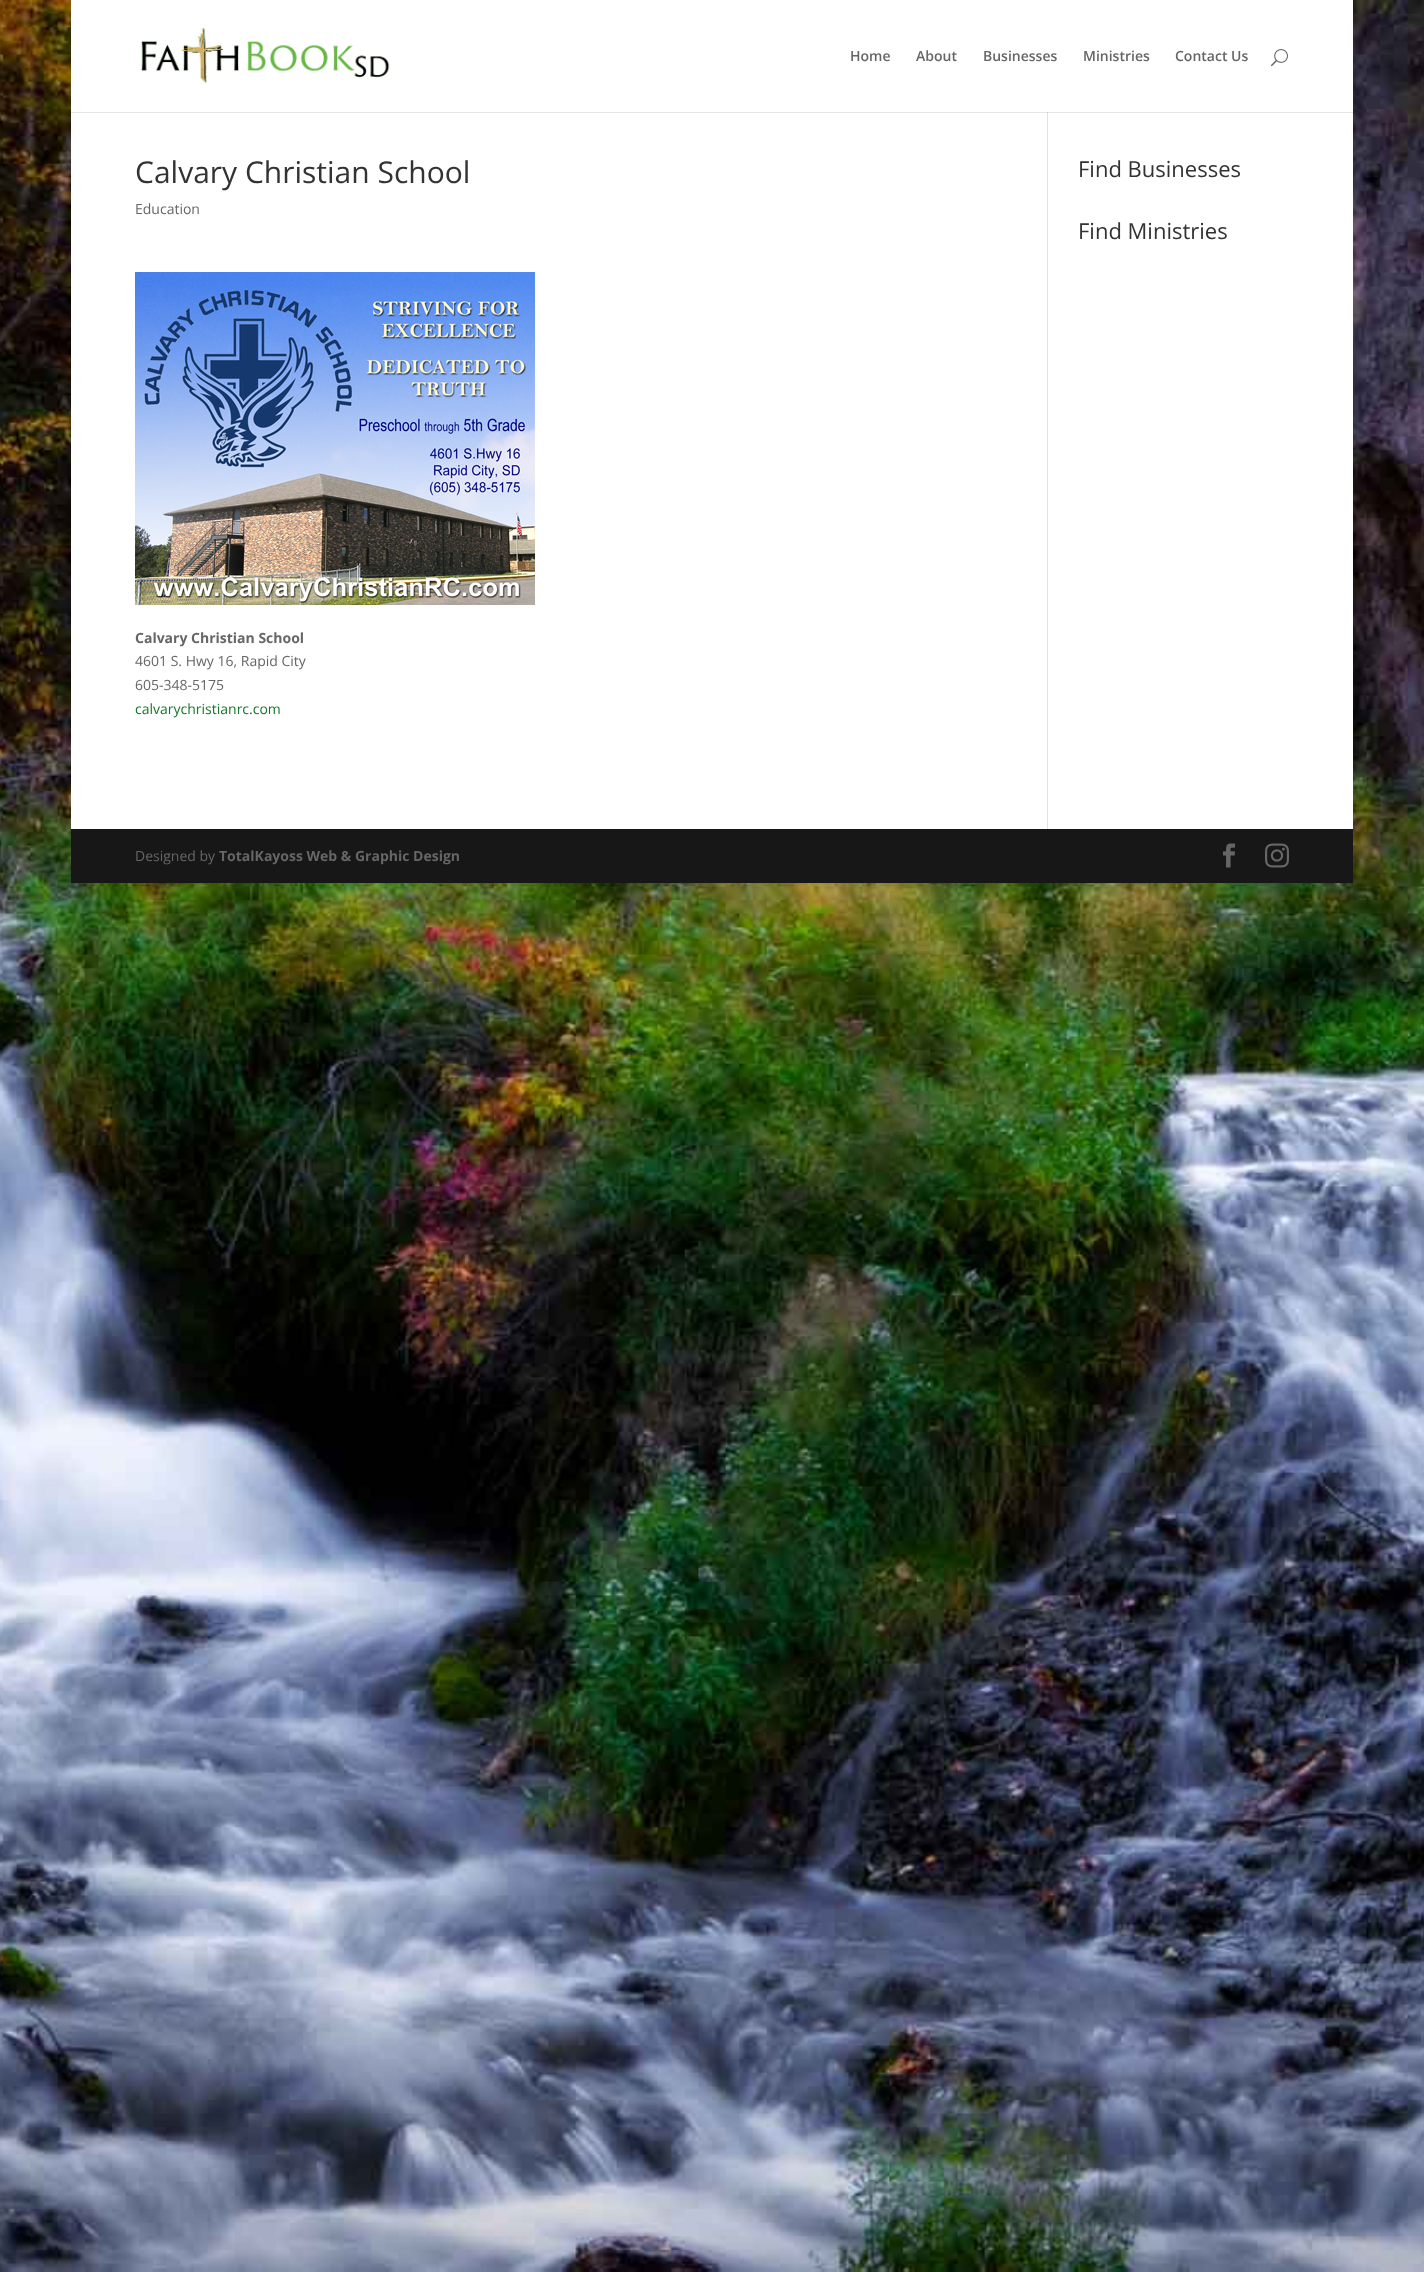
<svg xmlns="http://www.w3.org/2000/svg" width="1424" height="2272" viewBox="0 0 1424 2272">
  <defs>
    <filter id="blur1" x="-50%" y="-200%" width="200%" height="500%"><feGaussianBlur stdDeviation="5"/></filter>
  </defs>
  <rect width="100%" height="100%" fill="#ffffff"/>
  <image x="0" y="0" width="1424" height="2272" href="img1.png"/>
  <rect x="71" y="0" width="1282" height="883" fill="#000000" fill-opacity="0.2" filter="url(#blur1)"/>
  <rect x="71" y="0" width="1282" height="829" fill="#ffffff"/>
  <rect x="1047" y="112" width="1" height="717" fill="#e2e2e2"/>
  <rect x="71" y="112" width="1282" height="1" fill="#000000" fill-opacity="0.1"/>
  <image x="141" y="27" width="249" height="57" href="img2.png"/>
  <text x="850" y="61" font-family="Open Sans" font-size="14" font-weight="600" fill="#666666">Home</text>
  <text x="916" y="61" font-family="Open Sans" font-size="14" font-weight="600" fill="#666666">About</text>
  <text x="983" y="61" font-family="Open Sans" font-size="14" font-weight="600" fill="#666666">Businesses</text>
  <text x="1083" y="61" font-family="Open Sans" font-size="14" font-weight="600" fill="#666666">Ministries</text>
  <text x="1175" y="61" font-family="Open Sans" font-size="14" font-weight="600" fill="#666666">Contact Us</text>
  <image x="1271" y="49" width="17" height="18" href="img3.png"/>
  <text x="135" y="183" font-family="Open Sans" font-size="30" fill="#333333">Calvary Christian School</text>
  <text x="135" y="214" font-family="Open Sans" font-size="14" fill="#666666">Education</text>
  <image x="135" y="272" width="400" height="333" href="img4.png"/>
  <text x="135" y="643" font-family="Open Sans" font-size="14" font-weight="bold" fill="#666666">Calvary Christian School</text>
  <text x="135" y="666" font-family="Open Sans" font-size="14" fill="#666666">4601 S. Hwy 16, Rapid City</text>
  <text x="135" y="690" font-family="Open Sans" font-size="14" fill="#666666">605-348-5175</text>
  <text x="135" y="714" font-family="Open Sans" font-size="14" fill="#157729">calvarychristianrc.com</text>
  <text x="1078" y="177" font-family="Open Sans" font-size="22" fill="#333333">Find Businesses</text>
  <text x="1078" y="239" font-family="Open Sans" font-size="22" fill="#333333">Find Ministries</text>
  <rect x="71" y="829" width="1282" height="54" fill="#171717"/>
  <text x="135" y="861" font-family="Open Sans" font-size="14" fill="#666666">Designed by</text>
  <text x="219" y="861" font-family="Open Sans" font-size="14" font-weight="bold" fill="#666666">TotalKayoss Web &amp; Graphic Design</text>
  <image x="1223" y="843" width="12" height="25" href="img5.png"/>
  <image x="1265" y="843" width="24" height="25" href="img6.png"/>
</svg>
